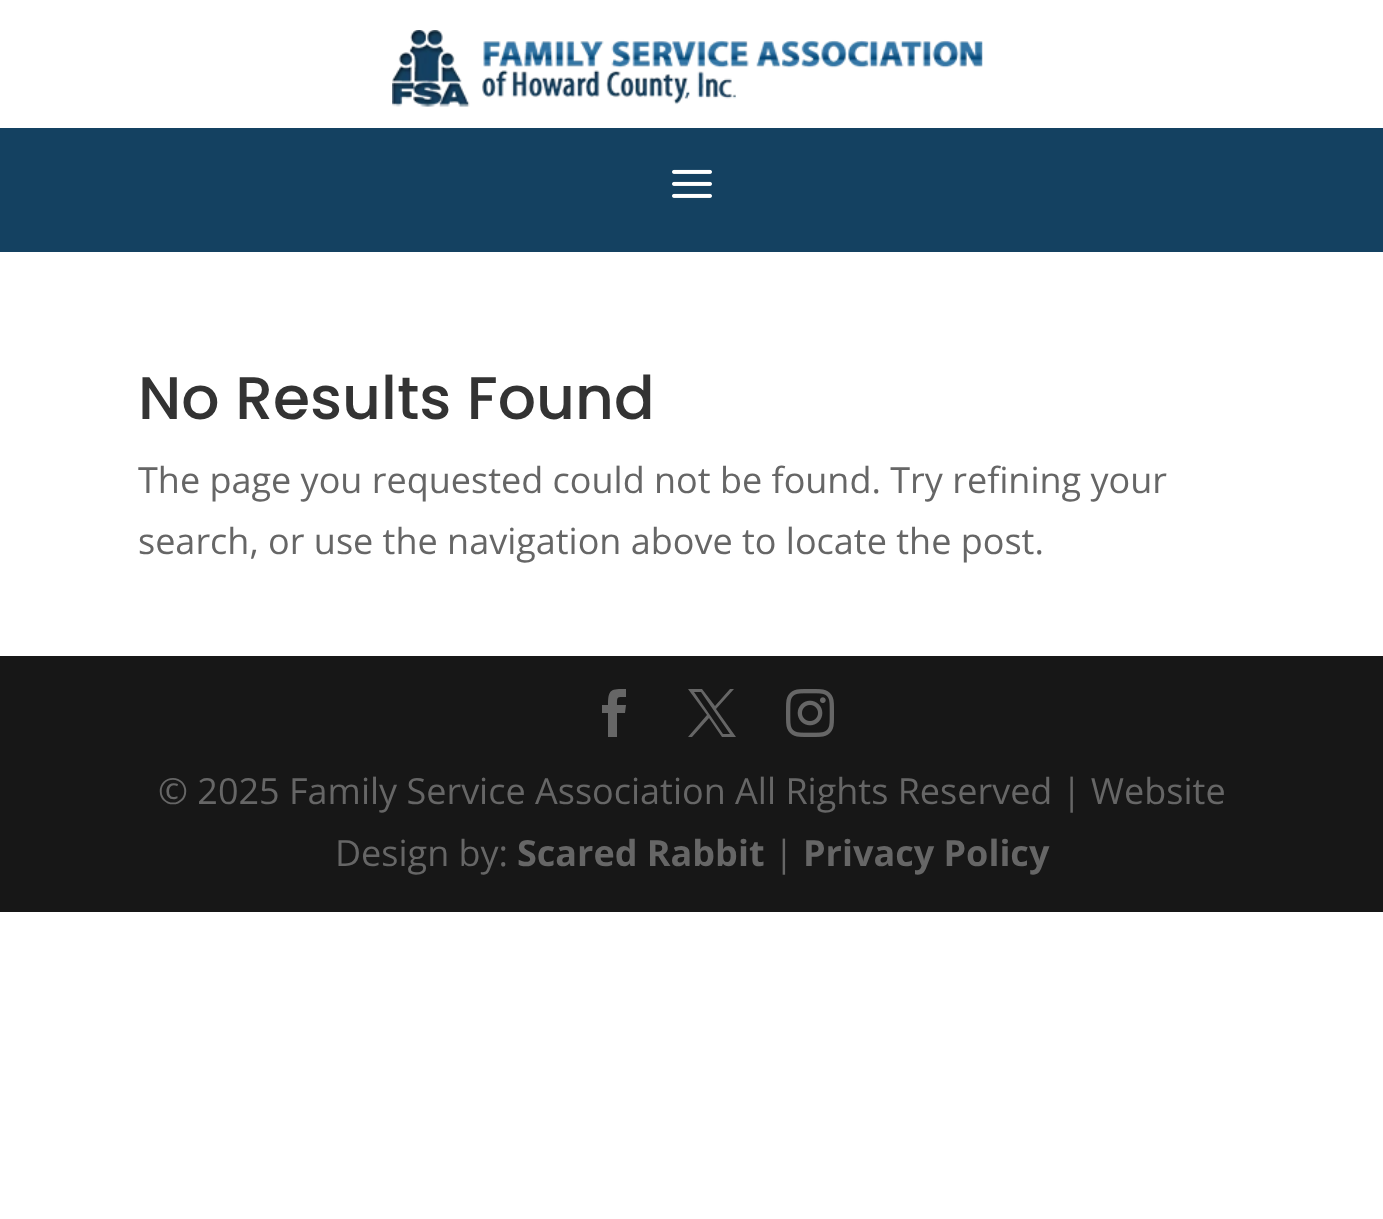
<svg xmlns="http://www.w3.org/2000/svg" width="1383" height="1219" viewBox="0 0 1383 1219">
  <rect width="100%" height="100%" fill="#ffffff"/>
  <image x="392" y="30" width="591" height="77" href="img1.png"/>
  <rect x="0" y="128" width="1383" height="124" fill="#144161"/>
  <image x="672" y="169" width="40" height="29" href="img2.png"/>
  <text x="138" y="419" font-family="Poppins" font-size="60" font-weight="500" fill="#333333">No Results Found</text>
  <text x="138" y="493" font-family="Open Sans" font-size="36" fill="#666666">The page you requested could not be found. Try refining your</text>
  <text x="138" y="554" font-family="Open Sans" font-size="36" fill="#666666">search, or use the navigation above to locate the post.</text>
  <rect x="0" y="656" width="1383" height="256" fill="#171717"/>
  <path d="M608 737H617V713H625L626 705H617C617 696 617 697 626 697V689C611 689 608 689 608 705H602V713H608Z" fill="#666666"/>
  <path d="M688 689L707 715L688 737H692L709 718L722 737H736L716 709L734 689H730L715 706L702 689ZM694 692H701L730 734H723Z" fill="#666666"/>
  <image x="786" y="689" width="48" height="48" href="img3.png"/>
  <text x="158" y="804" font-family="Open Sans" font-size="36" fill="#666666">© 2025 Family Service Association All Rights Reserved | Website</text>
  <text x="335" y="866" font-family="Open Sans" font-size="36" fill="#666666">Design by:</text>
  <text x="517" y="866" font-family="Open Sans" font-size="36" font-weight="bold" fill="#666666">Scared Rabbit</text>
  <text x="774" y="866" font-family="Open Sans" font-size="36" fill="#666666">|</text>
  <text x="803" y="866" font-family="Open Sans" font-size="36" font-weight="bold" fill="#666666">Privacy Policy</text>
</svg>
